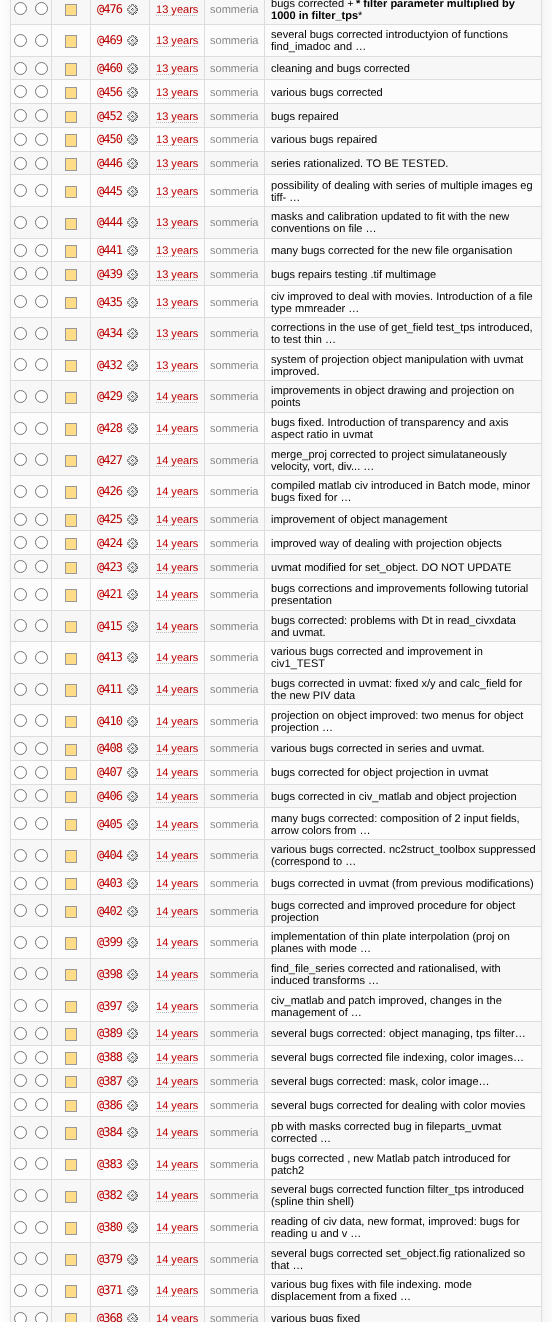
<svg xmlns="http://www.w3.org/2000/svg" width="552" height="1322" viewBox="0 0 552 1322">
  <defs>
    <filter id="blur1" x="-50%" y="-200%" width="200%" height="500%"><feGaussianBlur stdDeviation="10"/></filter>
  </defs>
  <rect width="100%" height="100%" fill="#ffffff"/>
  <rect x="13" y="-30" width="532" height="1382" fill="#eeeeee" filter="url(#blur1)"/>
  <rect x="16" y="0" width="525" height="24" fill="#f7f7f7"/>
  <circle cx="20.5" cy="8.5" r="6" fill="#ffffff" stroke="#767676"/>
  <circle cx="41.5" cy="8.5" r="6" fill="#ffffff" stroke="#767676"/>
  <rect x="65.5" y="4.5" width="11" height="11" fill="#ffdd88" stroke="#999999"/>
  <text x="97" y="13" font-family="DejaVu Sans Mono" font-size="12" letter-spacing="-1" fill="#bb0000">@476</text>
  <image x="127" y="4" width="11" height="11" href="img1.png"/>
  <path d="M156 15.5H198" fill="none" stroke="#bbbbbb" stroke-dasharray="1 1"/>
  <text x="156" y="13" font-family="Liberation Sans" font-size="11.05" fill="#bb0000">13 years</text>
  <text x="210" y="13" font-family="Liberation Sans" font-size="11.05" fill="#888888">sommeria</text>
  <text x="271" y="7" font-family="Liberation Sans" font-size="11.05" fill="#000000">bugs corrected +</text>
  <text x="356" y="7" font-family="Liberation Sans" font-size="11.05" font-weight="bold" fill="#000000">* filter parameter multiplied by</text>
  <text x="271" y="19" font-family="Liberation Sans" font-size="11.05" font-weight="bold" fill="#000000">1000 in filter_tps</text>
  <text x="358" y="19" font-family="Liberation Sans" font-size="11.05" fill="#000000">*</text>
  <rect x="11" y="25" width="530" height="31" fill="#fcfcfc"/>
  <rect x="10" y="24" width="532" height="1" fill="#dddddd"/>
  <circle cx="20.5" cy="40.5" r="6" fill="#ffffff" stroke="#767676"/>
  <circle cx="41.5" cy="40.5" r="6" fill="#ffffff" stroke="#767676"/>
  <rect x="65.5" y="35.5" width="11" height="12" fill="#ffdd88" stroke="#999999"/>
  <text x="97" y="44" font-family="DejaVu Sans Mono" font-size="12" letter-spacing="-1" fill="#bb0000">@469</text>
  <image x="127" y="35" width="11" height="11" href="img2.png"/>
  <path d="M156 46.5H198" fill="none" stroke="#bbbbbb" stroke-dasharray="1 1"/>
  <text x="156" y="44" font-family="Liberation Sans" font-size="11.05" fill="#bb0000">13 years</text>
  <text x="210" y="44" font-family="Liberation Sans" font-size="11.05" fill="#888888">sommeria</text>
  <text x="271" y="38" font-family="Liberation Sans" font-size="11.05" fill="#000000">several bugs corrected introductyion of functions</text>
  <text x="271" y="50" font-family="Liberation Sans" font-size="11.05" fill="#000000">find_imadoc and …</text>
  <rect x="16" y="57" width="525" height="22" fill="#f7f7f7"/>
  <rect x="10" y="56" width="532" height="1" fill="#dddddd"/>
  <circle cx="20.5" cy="68.5" r="6" fill="#ffffff" stroke="#767676"/>
  <circle cx="41.5" cy="68.5" r="6" fill="#ffffff" stroke="#767676"/>
  <rect x="65.5" y="63.5" width="11" height="12" fill="#ffdd88" stroke="#999999"/>
  <text x="97" y="72" font-family="DejaVu Sans Mono" font-size="12" letter-spacing="-1" fill="#bb0000">@460</text>
  <image x="127" y="63" width="11" height="11" href="img1.png"/>
  <path d="M156 74.5H198" fill="none" stroke="#bbbbbb" stroke-dasharray="1 1"/>
  <text x="156" y="72" font-family="Liberation Sans" font-size="11.05" fill="#bb0000">13 years</text>
  <text x="210" y="72" font-family="Liberation Sans" font-size="11.05" fill="#888888">sommeria</text>
  <text x="271" y="72" font-family="Liberation Sans" font-size="11.05" fill="#000000">cleaning and bugs corrected</text>
  <rect x="11" y="80" width="530" height="23" fill="#fcfcfc"/>
  <rect x="10" y="79" width="532" height="1" fill="#dddddd"/>
  <circle cx="20.5" cy="91.5" r="6" fill="#ffffff" stroke="#767676"/>
  <circle cx="41.5" cy="91.5" r="6" fill="#ffffff" stroke="#767676"/>
  <rect x="65.5" y="87.5" width="11" height="11" fill="#ffdd88" stroke="#999999"/>
  <text x="97" y="96" font-family="DejaVu Sans Mono" font-size="12" letter-spacing="-1" fill="#bb0000">@456</text>
  <image x="127" y="87" width="11" height="11" href="img2.png"/>
  <path d="M156 98.5H198" fill="none" stroke="#bbbbbb" stroke-dasharray="1 1"/>
  <text x="156" y="96" font-family="Liberation Sans" font-size="11.05" fill="#bb0000">13 years</text>
  <text x="210" y="96" font-family="Liberation Sans" font-size="11.05" fill="#888888">sommeria</text>
  <text x="271" y="96" font-family="Liberation Sans" font-size="11.05" fill="#000000">various bugs corrected</text>
  <rect x="16" y="104" width="525" height="23" fill="#f7f7f7"/>
  <rect x="10" y="103" width="532" height="1" fill="#dddddd"/>
  <circle cx="20.5" cy="115.5" r="6" fill="#ffffff" stroke="#767676"/>
  <circle cx="41.5" cy="115.5" r="6" fill="#ffffff" stroke="#767676"/>
  <rect x="65.5" y="111.5" width="11" height="11" fill="#ffdd88" stroke="#999999"/>
  <text x="97" y="120" font-family="DejaVu Sans Mono" font-size="12" letter-spacing="-1" fill="#bb0000">@452</text>
  <image x="127" y="111" width="11" height="11" href="img1.png"/>
  <path d="M156 122.5H198" fill="none" stroke="#bbbbbb" stroke-dasharray="1 1"/>
  <text x="156" y="120" font-family="Liberation Sans" font-size="11.05" fill="#bb0000">13 years</text>
  <text x="210" y="120" font-family="Liberation Sans" font-size="11.05" fill="#888888">sommeria</text>
  <text x="271" y="120" font-family="Liberation Sans" font-size="11.05" fill="#000000">bugs repaired</text>
  <rect x="11" y="128" width="530" height="23" fill="#fcfcfc"/>
  <rect x="10" y="127" width="532" height="1" fill="#dddddd"/>
  <circle cx="20.5" cy="139.5" r="6" fill="#ffffff" stroke="#767676"/>
  <circle cx="41.5" cy="139.5" r="6" fill="#ffffff" stroke="#767676"/>
  <rect x="65.5" y="134.5" width="11" height="12" fill="#ffdd88" stroke="#999999"/>
  <text x="97" y="143" font-family="DejaVu Sans Mono" font-size="12" letter-spacing="-1" fill="#bb0000">@450</text>
  <image x="127" y="134" width="11" height="11" href="img2.png"/>
  <path d="M156 145.5H198" fill="none" stroke="#bbbbbb" stroke-dasharray="1 1"/>
  <text x="156" y="143" font-family="Liberation Sans" font-size="11.05" fill="#bb0000">13 years</text>
  <text x="210" y="143" font-family="Liberation Sans" font-size="11.05" fill="#888888">sommeria</text>
  <text x="271" y="143" font-family="Liberation Sans" font-size="11.05" fill="#000000">various bugs repaired</text>
  <rect x="16" y="152" width="525" height="22" fill="#f7f7f7"/>
  <rect x="10" y="151" width="532" height="1" fill="#dddddd"/>
  <circle cx="20.5" cy="163.5" r="6" fill="#ffffff" stroke="#767676"/>
  <circle cx="41.5" cy="163.5" r="6" fill="#ffffff" stroke="#767676"/>
  <rect x="65.5" y="158.5" width="11" height="12" fill="#ffdd88" stroke="#999999"/>
  <text x="97" y="167" font-family="DejaVu Sans Mono" font-size="12" letter-spacing="-1" fill="#bb0000">@446</text>
  <image x="127" y="158" width="11" height="11" href="img1.png"/>
  <path d="M156 169.5H198" fill="none" stroke="#bbbbbb" stroke-dasharray="1 1"/>
  <text x="156" y="167" font-family="Liberation Sans" font-size="11.05" fill="#bb0000">13 years</text>
  <text x="210" y="167" font-family="Liberation Sans" font-size="11.05" fill="#888888">sommeria</text>
  <text x="271" y="167" font-family="Liberation Sans" font-size="11.05" fill="#000000">series rationalized. TO BE TESTED.</text>
  <rect x="11" y="175" width="530" height="31" fill="#fcfcfc"/>
  <rect x="10" y="174" width="532" height="1" fill="#dddddd"/>
  <circle cx="20.5" cy="190.5" r="6" fill="#ffffff" stroke="#767676"/>
  <circle cx="41.5" cy="190.5" r="6" fill="#ffffff" stroke="#767676"/>
  <rect x="65.5" y="186.5" width="11" height="11" fill="#ffdd88" stroke="#999999"/>
  <text x="97" y="195" font-family="DejaVu Sans Mono" font-size="12" letter-spacing="-1" fill="#bb0000">@445</text>
  <image x="127" y="186" width="11" height="11" href="img2.png"/>
  <path d="M156 197.5H198" fill="none" stroke="#bbbbbb" stroke-dasharray="1 1"/>
  <text x="156" y="195" font-family="Liberation Sans" font-size="11.05" fill="#bb0000">13 years</text>
  <text x="210" y="195" font-family="Liberation Sans" font-size="11.05" fill="#888888">sommeria</text>
  <text x="271" y="189" font-family="Liberation Sans" font-size="11.05" fill="#000000">possibility of dealing with series of multiple images eg</text>
  <text x="271" y="201" font-family="Liberation Sans" font-size="11.05" fill="#000000">tiff- …</text>
  <rect x="16" y="207" width="525" height="31" fill="#f7f7f7"/>
  <rect x="10" y="206" width="532" height="1" fill="#dddddd"/>
  <circle cx="20.5" cy="222.5" r="6" fill="#ffffff" stroke="#767676"/>
  <circle cx="41.5" cy="222.5" r="6" fill="#ffffff" stroke="#767676"/>
  <rect x="65.5" y="218.5" width="11" height="11" fill="#ffdd88" stroke="#999999"/>
  <text x="97" y="226" font-family="DejaVu Sans Mono" font-size="12" letter-spacing="-1" fill="#bb0000">@444</text>
  <image x="127" y="217" width="11" height="11" href="img1.png"/>
  <path d="M156 228.5H198" fill="none" stroke="#bbbbbb" stroke-dasharray="1 1"/>
  <text x="156" y="226" font-family="Liberation Sans" font-size="11.05" fill="#bb0000">13 years</text>
  <text x="210" y="226" font-family="Liberation Sans" font-size="11.05" fill="#888888">sommeria</text>
  <text x="271" y="220" font-family="Liberation Sans" font-size="11.05" fill="#000000">masks and calibration updated to fit with the new</text>
  <text x="271" y="232" font-family="Liberation Sans" font-size="11.05" fill="#000000">conventions on file …</text>
  <rect x="11" y="239" width="530" height="22" fill="#fcfcfc"/>
  <rect x="10" y="238" width="532" height="1" fill="#dddddd"/>
  <circle cx="20.5" cy="250.5" r="6" fill="#ffffff" stroke="#767676"/>
  <circle cx="41.5" cy="250.5" r="6" fill="#ffffff" stroke="#767676"/>
  <rect x="65.5" y="245.5" width="11" height="12" fill="#ffdd88" stroke="#999999"/>
  <text x="97" y="254" font-family="DejaVu Sans Mono" font-size="12" letter-spacing="-1" fill="#bb0000">@441</text>
  <image x="127" y="245" width="11" height="11" href="img2.png"/>
  <path d="M156 256.5H198" fill="none" stroke="#bbbbbb" stroke-dasharray="1 1"/>
  <text x="156" y="254" font-family="Liberation Sans" font-size="11.05" fill="#bb0000">13 years</text>
  <text x="210" y="254" font-family="Liberation Sans" font-size="11.05" fill="#888888">sommeria</text>
  <text x="271" y="254" font-family="Liberation Sans" font-size="11.05" fill="#000000">many bugs corrected for the new file organisation</text>
  <rect x="16" y="262" width="525" height="23" fill="#f7f7f7"/>
  <rect x="10" y="261" width="532" height="1" fill="#dddddd"/>
  <circle cx="20.5" cy="273.5" r="6" fill="#ffffff" stroke="#767676"/>
  <circle cx="41.5" cy="273.5" r="6" fill="#ffffff" stroke="#767676"/>
  <rect x="65.5" y="269.5" width="11" height="11" fill="#ffdd88" stroke="#999999"/>
  <text x="97" y="278" font-family="DejaVu Sans Mono" font-size="12" letter-spacing="-1" fill="#bb0000">@439</text>
  <image x="127" y="269" width="11" height="11" href="img1.png"/>
  <path d="M156 280.5H198" fill="none" stroke="#bbbbbb" stroke-dasharray="1 1"/>
  <text x="156" y="278" font-family="Liberation Sans" font-size="11.05" fill="#bb0000">13 years</text>
  <text x="210" y="278" font-family="Liberation Sans" font-size="11.05" fill="#888888">sommeria</text>
  <text x="271" y="278" font-family="Liberation Sans" font-size="11.05" fill="#000000">bugs repairs testing .tif multimage</text>
  <rect x="11" y="286" width="530" height="31" fill="#fcfcfc"/>
  <rect x="10" y="285" width="532" height="1" fill="#dddddd"/>
  <circle cx="20.5" cy="301.5" r="6" fill="#ffffff" stroke="#767676"/>
  <circle cx="41.5" cy="301.5" r="6" fill="#ffffff" stroke="#767676"/>
  <rect x="65.5" y="297.5" width="11" height="11" fill="#ffdd88" stroke="#999999"/>
  <text x="97" y="306" font-family="DejaVu Sans Mono" font-size="12" letter-spacing="-1" fill="#bb0000">@435</text>
  <image x="127" y="297" width="11" height="11" href="img2.png"/>
  <path d="M156 308.5H198" fill="none" stroke="#bbbbbb" stroke-dasharray="1 1"/>
  <text x="156" y="306" font-family="Liberation Sans" font-size="11.05" fill="#bb0000">13 years</text>
  <text x="210" y="306" font-family="Liberation Sans" font-size="11.05" fill="#888888">sommeria</text>
  <text x="271" y="300" font-family="Liberation Sans" font-size="11.05" fill="#000000">civ improved to deal with movies. Introduction of a file</text>
  <text x="271" y="312" font-family="Liberation Sans" font-size="11.05" fill="#000000">type mmreader …</text>
  <rect x="16" y="318" width="525" height="31" fill="#f7f7f7"/>
  <rect x="10" y="317" width="532" height="1" fill="#dddddd"/>
  <circle cx="20.5" cy="333.5" r="6" fill="#ffffff" stroke="#767676"/>
  <circle cx="41.5" cy="333.5" r="6" fill="#ffffff" stroke="#767676"/>
  <rect x="65.5" y="328.5" width="11" height="12" fill="#ffdd88" stroke="#999999"/>
  <text x="97" y="337" font-family="DejaVu Sans Mono" font-size="12" letter-spacing="-1" fill="#bb0000">@434</text>
  <image x="127" y="328" width="11" height="11" href="img1.png"/>
  <path d="M156 339.5H198" fill="none" stroke="#bbbbbb" stroke-dasharray="1 1"/>
  <text x="156" y="337" font-family="Liberation Sans" font-size="11.05" fill="#bb0000">13 years</text>
  <text x="210" y="337" font-family="Liberation Sans" font-size="11.05" fill="#888888">sommeria</text>
  <text x="271" y="331" font-family="Liberation Sans" font-size="11.05" fill="#000000">corrections in the use of get_field test_tps introduced,</text>
  <text x="271" y="343" font-family="Liberation Sans" font-size="11.05" fill="#000000">to test thin …</text>
  <rect x="11" y="350" width="530" height="30" fill="#fcfcfc"/>
  <rect x="10" y="349" width="532" height="1" fill="#dddddd"/>
  <circle cx="20.5" cy="364.5" r="6" fill="#ffffff" stroke="#767676"/>
  <circle cx="41.5" cy="364.5" r="6" fill="#ffffff" stroke="#767676"/>
  <rect x="65.5" y="360.5" width="11" height="11" fill="#ffdd88" stroke="#999999"/>
  <text x="97" y="369" font-family="DejaVu Sans Mono" font-size="12" letter-spacing="-1" fill="#bb0000">@432</text>
  <image x="127" y="360" width="11" height="11" href="img2.png"/>
  <path d="M156 371.5H198" fill="none" stroke="#bbbbbb" stroke-dasharray="1 1"/>
  <text x="156" y="369" font-family="Liberation Sans" font-size="11.05" fill="#bb0000">13 years</text>
  <text x="210" y="369" font-family="Liberation Sans" font-size="11.05" fill="#888888">sommeria</text>
  <text x="271" y="363" font-family="Liberation Sans" font-size="11.05" fill="#000000">system of projection object manipulation with uvmat</text>
  <text x="271" y="375" font-family="Liberation Sans" font-size="11.05" fill="#000000">improved.</text>
  <rect x="16" y="381" width="525" height="31" fill="#f7f7f7"/>
  <rect x="10" y="380" width="532" height="1" fill="#dddddd"/>
  <circle cx="20.5" cy="396.5" r="6" fill="#ffffff" stroke="#767676"/>
  <circle cx="41.5" cy="396.5" r="6" fill="#ffffff" stroke="#767676"/>
  <rect x="65.5" y="392.5" width="11" height="11" fill="#ffdd88" stroke="#999999"/>
  <text x="97" y="400" font-family="DejaVu Sans Mono" font-size="12" letter-spacing="-1" fill="#bb0000">@429</text>
  <image x="127" y="391" width="11" height="11" href="img1.png"/>
  <path d="M156 402.5H198" fill="none" stroke="#bbbbbb" stroke-dasharray="1 1"/>
  <text x="156" y="400" font-family="Liberation Sans" font-size="11.05" fill="#bb0000">14 years</text>
  <text x="210" y="400" font-family="Liberation Sans" font-size="11.05" fill="#888888">sommeria</text>
  <text x="271" y="394" font-family="Liberation Sans" font-size="11.05" fill="#000000">improvements in object drawing and projection on</text>
  <text x="271" y="406" font-family="Liberation Sans" font-size="11.05" fill="#000000">points</text>
  <rect x="11" y="413" width="530" height="30" fill="#fcfcfc"/>
  <rect x="10" y="412" width="532" height="1" fill="#dddddd"/>
  <circle cx="20.5" cy="428.5" r="6" fill="#ffffff" stroke="#767676"/>
  <circle cx="41.5" cy="428.5" r="6" fill="#ffffff" stroke="#767676"/>
  <rect x="65.5" y="423.5" width="11" height="12" fill="#ffdd88" stroke="#999999"/>
  <text x="97" y="432" font-family="DejaVu Sans Mono" font-size="12" letter-spacing="-1" fill="#bb0000">@428</text>
  <image x="127" y="423" width="11" height="11" href="img2.png"/>
  <path d="M156 434.5H198" fill="none" stroke="#bbbbbb" stroke-dasharray="1 1"/>
  <text x="156" y="432" font-family="Liberation Sans" font-size="11.05" fill="#bb0000">14 years</text>
  <text x="210" y="432" font-family="Liberation Sans" font-size="11.05" fill="#888888">sommeria</text>
  <text x="271" y="426" font-family="Liberation Sans" font-size="11.05" fill="#000000">bugs fixed. Introduction of transparency and axis</text>
  <text x="271" y="438" font-family="Liberation Sans" font-size="11.05" fill="#000000">aspect ratio in uvmat</text>
  <rect x="16" y="444" width="525" height="31" fill="#f7f7f7"/>
  <rect x="10" y="443" width="532" height="1" fill="#dddddd"/>
  <circle cx="20.5" cy="459.5" r="6" fill="#ffffff" stroke="#767676"/>
  <circle cx="41.5" cy="459.5" r="6" fill="#ffffff" stroke="#767676"/>
  <rect x="65.5" y="455.5" width="11" height="11" fill="#ffdd88" stroke="#999999"/>
  <text x="97" y="464" font-family="DejaVu Sans Mono" font-size="12" letter-spacing="-1" fill="#bb0000">@427</text>
  <image x="127" y="455" width="11" height="11" href="img1.png"/>
  <path d="M156 466.5H198" fill="none" stroke="#bbbbbb" stroke-dasharray="1 1"/>
  <text x="156" y="464" font-family="Liberation Sans" font-size="11.05" fill="#bb0000">14 years</text>
  <text x="210" y="464" font-family="Liberation Sans" font-size="11.05" fill="#888888">sommeria</text>
  <text x="271" y="458" font-family="Liberation Sans" font-size="11.05" fill="#000000">merge_proj corrected to project simulataneously</text>
  <text x="271" y="470" font-family="Liberation Sans" font-size="11.05" fill="#000000">velocity, vort, div... …</text>
  <rect x="11" y="476" width="530" height="31" fill="#fcfcfc"/>
  <rect x="10" y="475" width="532" height="1" fill="#dddddd"/>
  <circle cx="20.5" cy="491.5" r="6" fill="#ffffff" stroke="#767676"/>
  <circle cx="41.5" cy="491.5" r="6" fill="#ffffff" stroke="#767676"/>
  <rect x="65.5" y="486.5" width="11" height="12" fill="#ffdd88" stroke="#999999"/>
  <text x="97" y="495" font-family="DejaVu Sans Mono" font-size="12" letter-spacing="-1" fill="#bb0000">@426</text>
  <image x="127" y="486" width="11" height="11" href="img2.png"/>
  <path d="M156 497.5H198" fill="none" stroke="#bbbbbb" stroke-dasharray="1 1"/>
  <text x="156" y="495" font-family="Liberation Sans" font-size="11.05" fill="#bb0000">14 years</text>
  <text x="210" y="495" font-family="Liberation Sans" font-size="11.05" fill="#888888">sommeria</text>
  <text x="271" y="489" font-family="Liberation Sans" font-size="11.05" fill="#000000">compiled matlab civ introduced in Batch mode, minor</text>
  <text x="271" y="501" font-family="Liberation Sans" font-size="11.05" fill="#000000">bugs fixed for …</text>
  <rect x="16" y="508" width="525" height="22" fill="#f7f7f7"/>
  <rect x="10" y="507" width="532" height="1" fill="#dddddd"/>
  <circle cx="20.5" cy="519.5" r="6" fill="#ffffff" stroke="#767676"/>
  <circle cx="41.5" cy="519.5" r="6" fill="#ffffff" stroke="#767676"/>
  <rect x="65.5" y="514.5" width="11" height="12" fill="#ffdd88" stroke="#999999"/>
  <text x="97" y="523" font-family="DejaVu Sans Mono" font-size="12" letter-spacing="-1" fill="#bb0000">@425</text>
  <image x="127" y="514" width="11" height="11" href="img1.png"/>
  <path d="M156 525.5H198" fill="none" stroke="#bbbbbb" stroke-dasharray="1 1"/>
  <text x="156" y="523" font-family="Liberation Sans" font-size="11.05" fill="#bb0000">14 years</text>
  <text x="210" y="523" font-family="Liberation Sans" font-size="11.05" fill="#888888">sommeria</text>
  <text x="271" y="523" font-family="Liberation Sans" font-size="11.05" fill="#000000">improvement of object management</text>
  <rect x="11" y="531" width="530" height="23" fill="#fcfcfc"/>
  <rect x="10" y="530" width="532" height="1" fill="#dddddd"/>
  <circle cx="20.5" cy="542.5" r="6" fill="#ffffff" stroke="#767676"/>
  <circle cx="41.5" cy="542.5" r="6" fill="#ffffff" stroke="#767676"/>
  <rect x="65.5" y="538.5" width="11" height="11" fill="#ffdd88" stroke="#999999"/>
  <text x="97" y="547" font-family="DejaVu Sans Mono" font-size="12" letter-spacing="-1" fill="#bb0000">@424</text>
  <image x="127" y="538" width="11" height="11" href="img2.png"/>
  <path d="M156 549.5H198" fill="none" stroke="#bbbbbb" stroke-dasharray="1 1"/>
  <text x="156" y="547" font-family="Liberation Sans" font-size="11.05" fill="#bb0000">14 years</text>
  <text x="210" y="547" font-family="Liberation Sans" font-size="11.05" fill="#888888">sommeria</text>
  <text x="271" y="547" font-family="Liberation Sans" font-size="11.05" fill="#000000">improved way of dealing with projection objects</text>
  <rect x="16" y="555" width="525" height="23" fill="#f7f7f7"/>
  <rect x="10" y="554" width="532" height="1" fill="#dddddd"/>
  <circle cx="20.5" cy="566.5" r="6" fill="#ffffff" stroke="#767676"/>
  <circle cx="41.5" cy="566.5" r="6" fill="#ffffff" stroke="#767676"/>
  <rect x="65.5" y="562.5" width="11" height="11" fill="#ffdd88" stroke="#999999"/>
  <text x="97" y="571" font-family="DejaVu Sans Mono" font-size="12" letter-spacing="-1" fill="#bb0000">@423</text>
  <image x="127" y="562" width="11" height="11" href="img1.png"/>
  <path d="M156 573.5H198" fill="none" stroke="#bbbbbb" stroke-dasharray="1 1"/>
  <text x="156" y="571" font-family="Liberation Sans" font-size="11.05" fill="#bb0000">14 years</text>
  <text x="210" y="571" font-family="Liberation Sans" font-size="11.05" fill="#888888">sommeria</text>
  <text x="271" y="571" font-family="Liberation Sans" font-size="11.05" fill="#000000">uvmat modified for set_object. DO NOT UPDATE</text>
  <rect x="11" y="579" width="530" height="31" fill="#fcfcfc"/>
  <rect x="10" y="578" width="532" height="1" fill="#dddddd"/>
  <circle cx="20.5" cy="594.5" r="6" fill="#ffffff" stroke="#767676"/>
  <circle cx="41.5" cy="594.5" r="6" fill="#ffffff" stroke="#767676"/>
  <rect x="65.5" y="589.5" width="11" height="12" fill="#ffdd88" stroke="#999999"/>
  <text x="97" y="598" font-family="DejaVu Sans Mono" font-size="12" letter-spacing="-1" fill="#bb0000">@421</text>
  <image x="127" y="589" width="11" height="11" href="img2.png"/>
  <path d="M156 600.5H198" fill="none" stroke="#bbbbbb" stroke-dasharray="1 1"/>
  <text x="156" y="598" font-family="Liberation Sans" font-size="11.05" fill="#bb0000">14 years</text>
  <text x="210" y="598" font-family="Liberation Sans" font-size="11.05" fill="#888888">sommeria</text>
  <text x="271" y="592" font-family="Liberation Sans" font-size="11.05" fill="#000000">bugs corrections and improvements following tutorial</text>
  <text x="271" y="604" font-family="Liberation Sans" font-size="11.05" fill="#000000">presentation</text>
  <rect x="16" y="611" width="525" height="30" fill="#f7f7f7"/>
  <rect x="10" y="610" width="532" height="1" fill="#dddddd"/>
  <circle cx="20.5" cy="625.5" r="6" fill="#ffffff" stroke="#767676"/>
  <circle cx="41.5" cy="625.5" r="6" fill="#ffffff" stroke="#767676"/>
  <rect x="65.5" y="621.5" width="11" height="11" fill="#ffdd88" stroke="#999999"/>
  <text x="97" y="630" font-family="DejaVu Sans Mono" font-size="12" letter-spacing="-1" fill="#bb0000">@415</text>
  <image x="127" y="621" width="11" height="11" href="img1.png"/>
  <path d="M156 632.5H198" fill="none" stroke="#bbbbbb" stroke-dasharray="1 1"/>
  <text x="156" y="630" font-family="Liberation Sans" font-size="11.05" fill="#bb0000">14 years</text>
  <text x="210" y="630" font-family="Liberation Sans" font-size="11.05" fill="#888888">sommeria</text>
  <text x="271" y="624" font-family="Liberation Sans" font-size="11.05" fill="#000000">bugs corrected: problems with Dt in read_civxdata</text>
  <text x="271" y="636" font-family="Liberation Sans" font-size="11.05" fill="#000000">and uvmat.</text>
  <rect x="11" y="642" width="530" height="31" fill="#fcfcfc"/>
  <rect x="10" y="641" width="532" height="1" fill="#dddddd"/>
  <circle cx="20.5" cy="657.5" r="6" fill="#ffffff" stroke="#767676"/>
  <circle cx="41.5" cy="657.5" r="6" fill="#ffffff" stroke="#767676"/>
  <rect x="65.5" y="653.5" width="11" height="11" fill="#ffdd88" stroke="#999999"/>
  <text x="97" y="661" font-family="DejaVu Sans Mono" font-size="12" letter-spacing="-1" fill="#bb0000">@413</text>
  <image x="127" y="652" width="11" height="11" href="img2.png"/>
  <path d="M156 663.5H198" fill="none" stroke="#bbbbbb" stroke-dasharray="1 1"/>
  <text x="156" y="661" font-family="Liberation Sans" font-size="11.05" fill="#bb0000">14 years</text>
  <text x="210" y="661" font-family="Liberation Sans" font-size="11.05" fill="#888888">sommeria</text>
  <text x="271" y="655" font-family="Liberation Sans" font-size="11.05" fill="#000000">various bugs corrected and improvement in</text>
  <text x="271" y="667" font-family="Liberation Sans" font-size="11.05" fill="#000000">civ1_TEST</text>
  <rect x="16" y="674" width="525" height="30" fill="#f7f7f7"/>
  <rect x="10" y="673" width="532" height="1" fill="#dddddd"/>
  <circle cx="20.5" cy="689.5" r="6" fill="#ffffff" stroke="#767676"/>
  <circle cx="41.5" cy="689.5" r="6" fill="#ffffff" stroke="#767676"/>
  <rect x="65.5" y="684.5" width="11" height="12" fill="#ffdd88" stroke="#999999"/>
  <text x="97" y="693" font-family="DejaVu Sans Mono" font-size="12" letter-spacing="-1" fill="#bb0000">@411</text>
  <image x="127" y="684" width="11" height="11" href="img1.png"/>
  <path d="M156 695.5H198" fill="none" stroke="#bbbbbb" stroke-dasharray="1 1"/>
  <text x="156" y="693" font-family="Liberation Sans" font-size="11.05" fill="#bb0000">14 years</text>
  <text x="210" y="693" font-family="Liberation Sans" font-size="11.05" fill="#888888">sommeria</text>
  <text x="271" y="687" font-family="Liberation Sans" font-size="11.05" fill="#000000">bugs corrected in uvmat: fixed x/y and calc_field for</text>
  <text x="271" y="699" font-family="Liberation Sans" font-size="11.05" fill="#000000">the new PIV data</text>
  <rect x="11" y="705" width="530" height="31" fill="#fcfcfc"/>
  <rect x="10" y="704" width="532" height="1" fill="#dddddd"/>
  <circle cx="20.5" cy="720.5" r="6" fill="#ffffff" stroke="#767676"/>
  <circle cx="41.5" cy="720.5" r="6" fill="#ffffff" stroke="#767676"/>
  <rect x="65.5" y="716.5" width="11" height="11" fill="#ffdd88" stroke="#999999"/>
  <text x="97" y="725" font-family="DejaVu Sans Mono" font-size="12" letter-spacing="-1" fill="#bb0000">@410</text>
  <image x="127" y="716" width="11" height="11" href="img2.png"/>
  <path d="M156 727.5H198" fill="none" stroke="#bbbbbb" stroke-dasharray="1 1"/>
  <text x="156" y="725" font-family="Liberation Sans" font-size="11.05" fill="#bb0000">14 years</text>
  <text x="210" y="725" font-family="Liberation Sans" font-size="11.05" fill="#888888">sommeria</text>
  <text x="271" y="719" font-family="Liberation Sans" font-size="11.05" fill="#000000">projection on object improved: two menus for object</text>
  <text x="271" y="731" font-family="Liberation Sans" font-size="11.05" fill="#000000">projection …</text>
  <rect x="16" y="737" width="525" height="23" fill="#f7f7f7"/>
  <rect x="10" y="736" width="532" height="1" fill="#dddddd"/>
  <circle cx="20.5" cy="748.5" r="6" fill="#ffffff" stroke="#767676"/>
  <circle cx="41.5" cy="748.5" r="6" fill="#ffffff" stroke="#767676"/>
  <rect x="65.5" y="744.5" width="11" height="11" fill="#ffdd88" stroke="#999999"/>
  <text x="97" y="752" font-family="DejaVu Sans Mono" font-size="12" letter-spacing="-1" fill="#bb0000">@408</text>
  <image x="127" y="743" width="11" height="11" href="img1.png"/>
  <path d="M156 754.5H198" fill="none" stroke="#bbbbbb" stroke-dasharray="1 1"/>
  <text x="156" y="752" font-family="Liberation Sans" font-size="11.05" fill="#bb0000">14 years</text>
  <text x="210" y="752" font-family="Liberation Sans" font-size="11.05" fill="#888888">sommeria</text>
  <text x="271" y="752" font-family="Liberation Sans" font-size="11.05" fill="#000000">various bugs corrected in series and uvmat.</text>
  <rect x="11" y="761" width="530" height="23" fill="#fcfcfc"/>
  <rect x="10" y="760" width="532" height="1" fill="#dddddd"/>
  <circle cx="20.5" cy="772.5" r="6" fill="#ffffff" stroke="#767676"/>
  <circle cx="41.5" cy="772.5" r="6" fill="#ffffff" stroke="#767676"/>
  <rect x="65.5" y="767.5" width="11" height="12" fill="#ffdd88" stroke="#999999"/>
  <text x="97" y="776" font-family="DejaVu Sans Mono" font-size="12" letter-spacing="-1" fill="#bb0000">@407</text>
  <image x="127" y="767" width="11" height="11" href="img2.png"/>
  <path d="M156 778.5H198" fill="none" stroke="#bbbbbb" stroke-dasharray="1 1"/>
  <text x="156" y="776" font-family="Liberation Sans" font-size="11.05" fill="#bb0000">14 years</text>
  <text x="210" y="776" font-family="Liberation Sans" font-size="11.05" fill="#888888">sommeria</text>
  <text x="271" y="776" font-family="Liberation Sans" font-size="11.05" fill="#000000">bugs corrected for object projection in uvmat</text>
  <rect x="16" y="785" width="525" height="22" fill="#f7f7f7"/>
  <rect x="10" y="784" width="532" height="1" fill="#dddddd"/>
  <circle cx="20.5" cy="795.5" r="6" fill="#ffffff" stroke="#767676"/>
  <circle cx="41.5" cy="795.5" r="6" fill="#ffffff" stroke="#767676"/>
  <rect x="65.5" y="791.5" width="11" height="11" fill="#ffdd88" stroke="#999999"/>
  <text x="97" y="800" font-family="DejaVu Sans Mono" font-size="12" letter-spacing="-1" fill="#bb0000">@406</text>
  <image x="127" y="791" width="11" height="11" href="img1.png"/>
  <path d="M156 802.5H198" fill="none" stroke="#bbbbbb" stroke-dasharray="1 1"/>
  <text x="156" y="800" font-family="Liberation Sans" font-size="11.05" fill="#bb0000">14 years</text>
  <text x="210" y="800" font-family="Liberation Sans" font-size="11.05" fill="#888888">sommeria</text>
  <text x="271" y="800" font-family="Liberation Sans" font-size="11.05" fill="#000000">bugs corrected in civ_matlab and object projection</text>
  <rect x="11" y="808" width="530" height="31" fill="#fcfcfc"/>
  <rect x="10" y="807" width="532" height="1" fill="#dddddd"/>
  <circle cx="20.5" cy="823.5" r="6" fill="#ffffff" stroke="#767676"/>
  <circle cx="41.5" cy="823.5" r="6" fill="#ffffff" stroke="#767676"/>
  <rect x="65.5" y="819.5" width="11" height="11" fill="#ffdd88" stroke="#999999"/>
  <text x="97" y="828" font-family="DejaVu Sans Mono" font-size="12" letter-spacing="-1" fill="#bb0000">@405</text>
  <image x="127" y="819" width="11" height="11" href="img2.png"/>
  <path d="M156 830.5H198" fill="none" stroke="#bbbbbb" stroke-dasharray="1 1"/>
  <text x="156" y="828" font-family="Liberation Sans" font-size="11.05" fill="#bb0000">14 years</text>
  <text x="210" y="828" font-family="Liberation Sans" font-size="11.05" fill="#888888">sommeria</text>
  <text x="271" y="822" font-family="Liberation Sans" font-size="11.05" fill="#000000">many bugs corrected: composition of 2 input fields,</text>
  <text x="271" y="834" font-family="Liberation Sans" font-size="11.05" fill="#000000">arrow colors from …</text>
  <rect x="16" y="840" width="525" height="31" fill="#f7f7f7"/>
  <rect x="10" y="839" width="532" height="1" fill="#dddddd"/>
  <circle cx="20.5" cy="855.5" r="6" fill="#ffffff" stroke="#767676"/>
  <circle cx="41.5" cy="855.5" r="6" fill="#ffffff" stroke="#767676"/>
  <rect x="65.5" y="850.5" width="11" height="12" fill="#ffdd88" stroke="#999999"/>
  <text x="97" y="859" font-family="DejaVu Sans Mono" font-size="12" letter-spacing="-1" fill="#bb0000">@404</text>
  <image x="127" y="850" width="11" height="11" href="img1.png"/>
  <path d="M156 861.5H198" fill="none" stroke="#bbbbbb" stroke-dasharray="1 1"/>
  <text x="156" y="859" font-family="Liberation Sans" font-size="11.05" fill="#bb0000">14 years</text>
  <text x="210" y="859" font-family="Liberation Sans" font-size="11.05" fill="#888888">sommeria</text>
  <text x="271" y="853" font-family="Liberation Sans" font-size="11.05" fill="#000000">various bugs corrected. nc2struct_toolbox suppressed</text>
  <text x="271" y="865" font-family="Liberation Sans" font-size="11.05" fill="#000000">(correspond to …</text>
  <rect x="11" y="872" width="530" height="22" fill="#fcfcfc"/>
  <rect x="10" y="871" width="532" height="1" fill="#dddddd"/>
  <circle cx="20.5" cy="883.5" r="6" fill="#ffffff" stroke="#767676"/>
  <circle cx="41.5" cy="883.5" r="6" fill="#ffffff" stroke="#767676"/>
  <rect x="65.5" y="878.5" width="11" height="11" fill="#ffdd88" stroke="#999999"/>
  <text x="97" y="887" font-family="DejaVu Sans Mono" font-size="12" letter-spacing="-1" fill="#bb0000">@403</text>
  <image x="127" y="878" width="11" height="11" href="img2.png"/>
  <path d="M156 889.5H198" fill="none" stroke="#bbbbbb" stroke-dasharray="1 1"/>
  <text x="156" y="887" font-family="Liberation Sans" font-size="11.05" fill="#bb0000">14 years</text>
  <text x="210" y="887" font-family="Liberation Sans" font-size="11.05" fill="#888888">sommeria</text>
  <text x="271" y="887" font-family="Liberation Sans" font-size="11.05" fill="#000000">bugs corrected in uvmat (from previous modifications)</text>
  <rect x="16" y="895" width="525" height="31" fill="#f7f7f7"/>
  <rect x="10" y="894" width="532" height="1" fill="#dddddd"/>
  <circle cx="20.5" cy="910.5" r="6" fill="#ffffff" stroke="#767676"/>
  <circle cx="41.5" cy="910.5" r="6" fill="#ffffff" stroke="#767676"/>
  <rect x="65.5" y="906.5" width="11" height="11" fill="#ffdd88" stroke="#999999"/>
  <text x="97" y="915" font-family="DejaVu Sans Mono" font-size="12" letter-spacing="-1" fill="#bb0000">@402</text>
  <image x="127" y="906" width="11" height="11" href="img1.png"/>
  <path d="M156 917.5H198" fill="none" stroke="#bbbbbb" stroke-dasharray="1 1"/>
  <text x="156" y="915" font-family="Liberation Sans" font-size="11.05" fill="#bb0000">14 years</text>
  <text x="210" y="915" font-family="Liberation Sans" font-size="11.05" fill="#888888">sommeria</text>
  <text x="271" y="909" font-family="Liberation Sans" font-size="11.05" fill="#000000">bugs corrected and improved procedure for object</text>
  <text x="271" y="921" font-family="Liberation Sans" font-size="11.05" fill="#000000">projection</text>
  <rect x="11" y="927" width="530" height="31" fill="#fcfcfc"/>
  <rect x="10" y="926" width="532" height="1" fill="#dddddd"/>
  <circle cx="20.5" cy="942.5" r="6" fill="#ffffff" stroke="#767676"/>
  <circle cx="41.5" cy="942.5" r="6" fill="#ffffff" stroke="#767676"/>
  <rect x="65.5" y="937.5" width="11" height="12" fill="#ffdd88" stroke="#999999"/>
  <text x="97" y="946" font-family="DejaVu Sans Mono" font-size="12" letter-spacing="-1" fill="#bb0000">@399</text>
  <image x="127" y="937" width="11" height="11" href="img2.png"/>
  <path d="M156 948.5H198" fill="none" stroke="#bbbbbb" stroke-dasharray="1 1"/>
  <text x="156" y="946" font-family="Liberation Sans" font-size="11.05" fill="#bb0000">14 years</text>
  <text x="210" y="946" font-family="Liberation Sans" font-size="11.05" fill="#888888">sommeria</text>
  <text x="271" y="940" font-family="Liberation Sans" font-size="11.05" fill="#000000">implementation of thin plate interpolation (proj on</text>
  <text x="271" y="952" font-family="Liberation Sans" font-size="11.05" fill="#000000">planes with mode …</text>
  <rect x="16" y="959" width="525" height="30" fill="#f7f7f7"/>
  <rect x="10" y="958" width="532" height="1" fill="#dddddd"/>
  <circle cx="20.5" cy="973.5" r="6" fill="#ffffff" stroke="#767676"/>
  <circle cx="41.5" cy="973.5" r="6" fill="#ffffff" stroke="#767676"/>
  <rect x="65.5" y="969.5" width="11" height="11" fill="#ffdd88" stroke="#999999"/>
  <text x="97" y="978" font-family="DejaVu Sans Mono" font-size="12" letter-spacing="-1" fill="#bb0000">@398</text>
  <image x="127" y="969" width="11" height="11" href="img1.png"/>
  <path d="M156 980.5H198" fill="none" stroke="#bbbbbb" stroke-dasharray="1 1"/>
  <text x="156" y="978" font-family="Liberation Sans" font-size="11.05" fill="#bb0000">14 years</text>
  <text x="210" y="978" font-family="Liberation Sans" font-size="11.05" fill="#888888">sommeria</text>
  <text x="271" y="972" font-family="Liberation Sans" font-size="11.05" fill="#000000">find_file_series corrected and rationalised, with</text>
  <text x="271" y="984" font-family="Liberation Sans" font-size="11.05" fill="#000000">induced transforms …</text>
  <rect x="11" y="990" width="530" height="31" fill="#fcfcfc"/>
  <rect x="10" y="989" width="532" height="1" fill="#dddddd"/>
  <circle cx="20.5" cy="1005.5" r="6" fill="#ffffff" stroke="#767676"/>
  <circle cx="41.5" cy="1005.5" r="6" fill="#ffffff" stroke="#767676"/>
  <rect x="65.5" y="1001.5" width="11" height="11" fill="#ffdd88" stroke="#999999"/>
  <text x="97" y="1010" font-family="DejaVu Sans Mono" font-size="12" letter-spacing="-1" fill="#bb0000">@397</text>
  <image x="127" y="1001" width="11" height="11" href="img2.png"/>
  <path d="M156 1012.5H198" fill="none" stroke="#bbbbbb" stroke-dasharray="1 1"/>
  <text x="156" y="1010" font-family="Liberation Sans" font-size="11.05" fill="#bb0000">14 years</text>
  <text x="210" y="1010" font-family="Liberation Sans" font-size="11.05" fill="#888888">sommeria</text>
  <text x="271" y="1004" font-family="Liberation Sans" font-size="11.05" fill="#000000">civ_matlab and patch improved, changes in the</text>
  <text x="271" y="1016" font-family="Liberation Sans" font-size="11.05" fill="#000000">management of …</text>
  <rect x="16" y="1022" width="525" height="23" fill="#f7f7f7"/>
  <rect x="10" y="1021" width="532" height="1" fill="#dddddd"/>
  <circle cx="20.5" cy="1033.5" r="6" fill="#ffffff" stroke="#767676"/>
  <circle cx="41.5" cy="1033.5" r="6" fill="#ffffff" stroke="#767676"/>
  <rect x="65.5" y="1028.5" width="11" height="12" fill="#ffdd88" stroke="#999999"/>
  <text x="97" y="1037" font-family="DejaVu Sans Mono" font-size="12" letter-spacing="-1" fill="#bb0000">@389</text>
  <image x="127" y="1028" width="11" height="11" href="img1.png"/>
  <path d="M156 1039.5H198" fill="none" stroke="#bbbbbb" stroke-dasharray="1 1"/>
  <text x="156" y="1037" font-family="Liberation Sans" font-size="11.05" fill="#bb0000">14 years</text>
  <text x="210" y="1037" font-family="Liberation Sans" font-size="11.05" fill="#888888">sommeria</text>
  <text x="271" y="1037" font-family="Liberation Sans" font-size="11.05" fill="#000000">several bugs corrected: object managing, tps filter…</text>
  <rect x="11" y="1046" width="530" height="22" fill="#fcfcfc"/>
  <rect x="10" y="1045" width="532" height="1" fill="#dddddd"/>
  <circle cx="20.5" cy="1057.5" r="6" fill="#ffffff" stroke="#767676"/>
  <circle cx="41.5" cy="1057.5" r="6" fill="#ffffff" stroke="#767676"/>
  <rect x="65.5" y="1052.5" width="11" height="12" fill="#ffdd88" stroke="#999999"/>
  <text x="97" y="1061" font-family="DejaVu Sans Mono" font-size="12" letter-spacing="-1" fill="#bb0000">@388</text>
  <image x="127" y="1052" width="11" height="11" href="img2.png"/>
  <path d="M156 1063.5H198" fill="none" stroke="#bbbbbb" stroke-dasharray="1 1"/>
  <text x="156" y="1061" font-family="Liberation Sans" font-size="11.05" fill="#bb0000">14 years</text>
  <text x="210" y="1061" font-family="Liberation Sans" font-size="11.05" fill="#888888">sommeria</text>
  <text x="271" y="1061" font-family="Liberation Sans" font-size="11.05" fill="#000000">several bugs corrected file indexing, color images…</text>
  <rect x="16" y="1069" width="525" height="23" fill="#f7f7f7"/>
  <rect x="10" y="1068" width="532" height="1" fill="#dddddd"/>
  <circle cx="20.5" cy="1080.5" r="6" fill="#ffffff" stroke="#767676"/>
  <circle cx="41.5" cy="1080.5" r="6" fill="#ffffff" stroke="#767676"/>
  <rect x="65.5" y="1076.5" width="11" height="11" fill="#ffdd88" stroke="#999999"/>
  <text x="97" y="1085" font-family="DejaVu Sans Mono" font-size="12" letter-spacing="-1" fill="#bb0000">@387</text>
  <image x="127" y="1076" width="11" height="11" href="img1.png"/>
  <path d="M156 1087.5H198" fill="none" stroke="#bbbbbb" stroke-dasharray="1 1"/>
  <text x="156" y="1085" font-family="Liberation Sans" font-size="11.05" fill="#bb0000">14 years</text>
  <text x="210" y="1085" font-family="Liberation Sans" font-size="11.05" fill="#888888">sommeria</text>
  <text x="271" y="1085" font-family="Liberation Sans" font-size="11.05" fill="#000000">several bugs corrected: mask, color image…</text>
  <rect x="11" y="1093" width="530" height="23" fill="#fcfcfc"/>
  <rect x="10" y="1092" width="532" height="1" fill="#dddddd"/>
  <circle cx="20.5" cy="1104.5" r="6" fill="#ffffff" stroke="#767676"/>
  <circle cx="41.5" cy="1104.5" r="6" fill="#ffffff" stroke="#767676"/>
  <rect x="65.5" y="1100.5" width="11" height="11" fill="#ffdd88" stroke="#999999"/>
  <text x="97" y="1109" font-family="DejaVu Sans Mono" font-size="12" letter-spacing="-1" fill="#bb0000">@386</text>
  <image x="127" y="1100" width="11" height="11" href="img2.png"/>
  <path d="M156 1111.5H198" fill="none" stroke="#bbbbbb" stroke-dasharray="1 1"/>
  <text x="156" y="1109" font-family="Liberation Sans" font-size="11.05" fill="#bb0000">14 years</text>
  <text x="210" y="1109" font-family="Liberation Sans" font-size="11.05" fill="#888888">sommeria</text>
  <text x="271" y="1109" font-family="Liberation Sans" font-size="11.05" fill="#000000">several bugs corrected for dealing with color movies</text>
  <rect x="16" y="1117" width="525" height="31" fill="#f7f7f7"/>
  <rect x="10" y="1116" width="532" height="1" fill="#dddddd"/>
  <circle cx="20.5" cy="1132.5" r="6" fill="#ffffff" stroke="#767676"/>
  <circle cx="41.5" cy="1132.5" r="6" fill="#ffffff" stroke="#767676"/>
  <rect x="65.5" y="1127.5" width="11" height="12" fill="#ffdd88" stroke="#999999"/>
  <text x="97" y="1136" font-family="DejaVu Sans Mono" font-size="12" letter-spacing="-1" fill="#bb0000">@384</text>
  <image x="127" y="1127" width="11" height="11" href="img1.png"/>
  <path d="M156 1138.5H198" fill="none" stroke="#bbbbbb" stroke-dasharray="1 1"/>
  <text x="156" y="1136" font-family="Liberation Sans" font-size="11.05" fill="#bb0000">14 years</text>
  <text x="210" y="1136" font-family="Liberation Sans" font-size="11.05" fill="#888888">sommeria</text>
  <text x="271" y="1130" font-family="Liberation Sans" font-size="11.05" fill="#000000">pb with masks corrected bug in fileparts_uvmat</text>
  <text x="271" y="1142" font-family="Liberation Sans" font-size="11.05" fill="#000000">corrected …</text>
  <rect x="11" y="1149" width="530" height="30" fill="#fcfcfc"/>
  <rect x="10" y="1148" width="532" height="1" fill="#dddddd"/>
  <circle cx="20.5" cy="1163.5" r="6" fill="#ffffff" stroke="#767676"/>
  <circle cx="41.5" cy="1163.5" r="6" fill="#ffffff" stroke="#767676"/>
  <rect x="65.5" y="1159.5" width="11" height="11" fill="#ffdd88" stroke="#999999"/>
  <text x="97" y="1168" font-family="DejaVu Sans Mono" font-size="12" letter-spacing="-1" fill="#bb0000">@383</text>
  <image x="127" y="1159" width="11" height="11" href="img2.png"/>
  <path d="M156 1170.5H198" fill="none" stroke="#bbbbbb" stroke-dasharray="1 1"/>
  <text x="156" y="1168" font-family="Liberation Sans" font-size="11.05" fill="#bb0000">14 years</text>
  <text x="210" y="1168" font-family="Liberation Sans" font-size="11.05" fill="#888888">sommeria</text>
  <text x="271" y="1162" font-family="Liberation Sans" font-size="11.05" fill="#000000">bugs corrected , new Matlab patch introduced for</text>
  <text x="271" y="1174" font-family="Liberation Sans" font-size="11.05" fill="#000000">patch2</text>
  <rect x="16" y="1180" width="525" height="31" fill="#f7f7f7"/>
  <rect x="10" y="1179" width="532" height="1" fill="#dddddd"/>
  <circle cx="20.5" cy="1195.5" r="6" fill="#ffffff" stroke="#767676"/>
  <circle cx="41.5" cy="1195.5" r="6" fill="#ffffff" stroke="#767676"/>
  <rect x="65.5" y="1191.5" width="11" height="11" fill="#ffdd88" stroke="#999999"/>
  <text x="97" y="1199" font-family="DejaVu Sans Mono" font-size="12" letter-spacing="-1" fill="#bb0000">@382</text>
  <image x="127" y="1190" width="11" height="11" href="img1.png"/>
  <path d="M156 1201.5H198" fill="none" stroke="#bbbbbb" stroke-dasharray="1 1"/>
  <text x="156" y="1199" font-family="Liberation Sans" font-size="11.05" fill="#bb0000">14 years</text>
  <text x="210" y="1199" font-family="Liberation Sans" font-size="11.05" fill="#888888">sommeria</text>
  <text x="271" y="1193" font-family="Liberation Sans" font-size="11.05" fill="#000000">several bugs corrected function filter_tps introduced</text>
  <text x="271" y="1205" font-family="Liberation Sans" font-size="11.05" fill="#000000">(spline thin shell)</text>
  <rect x="11" y="1212" width="530" height="30" fill="#fcfcfc"/>
  <rect x="10" y="1211" width="532" height="1" fill="#dddddd"/>
  <circle cx="20.5" cy="1227.5" r="6" fill="#ffffff" stroke="#767676"/>
  <circle cx="41.5" cy="1227.5" r="6" fill="#ffffff" stroke="#767676"/>
  <rect x="65.5" y="1222.5" width="11" height="12" fill="#ffdd88" stroke="#999999"/>
  <text x="97" y="1231" font-family="DejaVu Sans Mono" font-size="12" letter-spacing="-1" fill="#bb0000">@380</text>
  <image x="127" y="1222" width="11" height="11" href="img2.png"/>
  <path d="M156 1233.5H198" fill="none" stroke="#bbbbbb" stroke-dasharray="1 1"/>
  <text x="156" y="1231" font-family="Liberation Sans" font-size="11.05" fill="#bb0000">14 years</text>
  <text x="210" y="1231" font-family="Liberation Sans" font-size="11.05" fill="#888888">sommeria</text>
  <text x="271" y="1225" font-family="Liberation Sans" font-size="11.05" fill="#000000">reading of civ data, new format, improved: bugs for</text>
  <text x="271" y="1237" font-family="Liberation Sans" font-size="11.05" fill="#000000">reading u and v …</text>
  <rect x="16" y="1243" width="525" height="31" fill="#f7f7f7"/>
  <rect x="10" y="1242" width="532" height="1" fill="#dddddd"/>
  <circle cx="20.5" cy="1258.5" r="6" fill="#ffffff" stroke="#767676"/>
  <circle cx="41.5" cy="1258.5" r="6" fill="#ffffff" stroke="#767676"/>
  <rect x="65.5" y="1254.5" width="11" height="11" fill="#ffdd88" stroke="#999999"/>
  <text x="97" y="1263" font-family="DejaVu Sans Mono" font-size="12" letter-spacing="-1" fill="#bb0000">@379</text>
  <image x="127" y="1254" width="11" height="11" href="img1.png"/>
  <path d="M156 1265.5H198" fill="none" stroke="#bbbbbb" stroke-dasharray="1 1"/>
  <text x="156" y="1263" font-family="Liberation Sans" font-size="11.05" fill="#bb0000">14 years</text>
  <text x="210" y="1263" font-family="Liberation Sans" font-size="11.05" fill="#888888">sommeria</text>
  <text x="271" y="1257" font-family="Liberation Sans" font-size="11.05" fill="#000000">several bugs corrected set_object.fig rationalized so</text>
  <text x="271" y="1269" font-family="Liberation Sans" font-size="11.05" fill="#000000">that …</text>
  <rect x="11" y="1275" width="530" height="31" fill="#fcfcfc"/>
  <rect x="10" y="1274" width="532" height="1" fill="#dddddd"/>
  <circle cx="20.5" cy="1290.5" r="6" fill="#ffffff" stroke="#767676"/>
  <circle cx="41.5" cy="1290.5" r="6" fill="#ffffff" stroke="#767676"/>
  <rect x="65.5" y="1285.5" width="11" height="12" fill="#ffdd88" stroke="#999999"/>
  <text x="97" y="1294" font-family="DejaVu Sans Mono" font-size="12" letter-spacing="-1" fill="#bb0000">@371</text>
  <image x="127" y="1285" width="11" height="11" href="img2.png"/>
  <path d="M156 1296.5H198" fill="none" stroke="#bbbbbb" stroke-dasharray="1 1"/>
  <text x="156" y="1294" font-family="Liberation Sans" font-size="11.05" fill="#bb0000">14 years</text>
  <text x="210" y="1294" font-family="Liberation Sans" font-size="11.05" fill="#888888">sommeria</text>
  <text x="271" y="1288" font-family="Liberation Sans" font-size="11.05" fill="#000000">various bug fixes with file indexing. mode</text>
  <text x="271" y="1300" font-family="Liberation Sans" font-size="11.05" fill="#000000">displacement from a fixed …</text>
  <rect x="16" y="1307" width="525" height="15" fill="#f7f7f7"/>
  <rect x="10" y="1306" width="532" height="1" fill="#dddddd"/>
  <rect x="10" y="0" width="1" height="1322" fill="#dddddd"/>
  <circle cx="20.5" cy="1318.5" r="6" fill="#ffffff" stroke="#767676"/>
  <circle cx="41.5" cy="1318.5" r="6" fill="#ffffff" stroke="#767676"/>
  <rect x="51" y="0" width="1" height="1322" fill="#dddddd"/>
  <rect x="65.5" y="1313.5" width="11" height="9" fill="#ffdd88" stroke="#999999"/>
  <rect x="90" y="0" width="1" height="1322" fill="#dddddd"/>
  <text x="97" y="1322" font-family="DejaVu Sans Mono" font-size="12" letter-spacing="-1" fill="#bb0000">@368</text>
  <image x="127" y="1313" width="11" height="9" href="img3.png"/>
  <rect x="149" y="0" width="1" height="1322" fill="#dddddd"/>
  <text x="156" y="1322" font-family="Liberation Sans" font-size="11.05" fill="#bb0000">14 years</text>
  <rect x="204" y="0" width="1" height="1322" fill="#dddddd"/>
  <text x="210" y="1322" font-family="Liberation Sans" font-size="11.05" fill="#888888">sommeria</text>
  <rect x="541" y="0" width="1" height="1322" fill="#dddddd"/>
  <rect x="264" y="0" width="1" height="1322" fill="#dddddd"/>
  <text x="271" y="1322" font-family="Liberation Sans" font-size="11.05" fill="#000000">various bugs fixed</text>
</svg>
